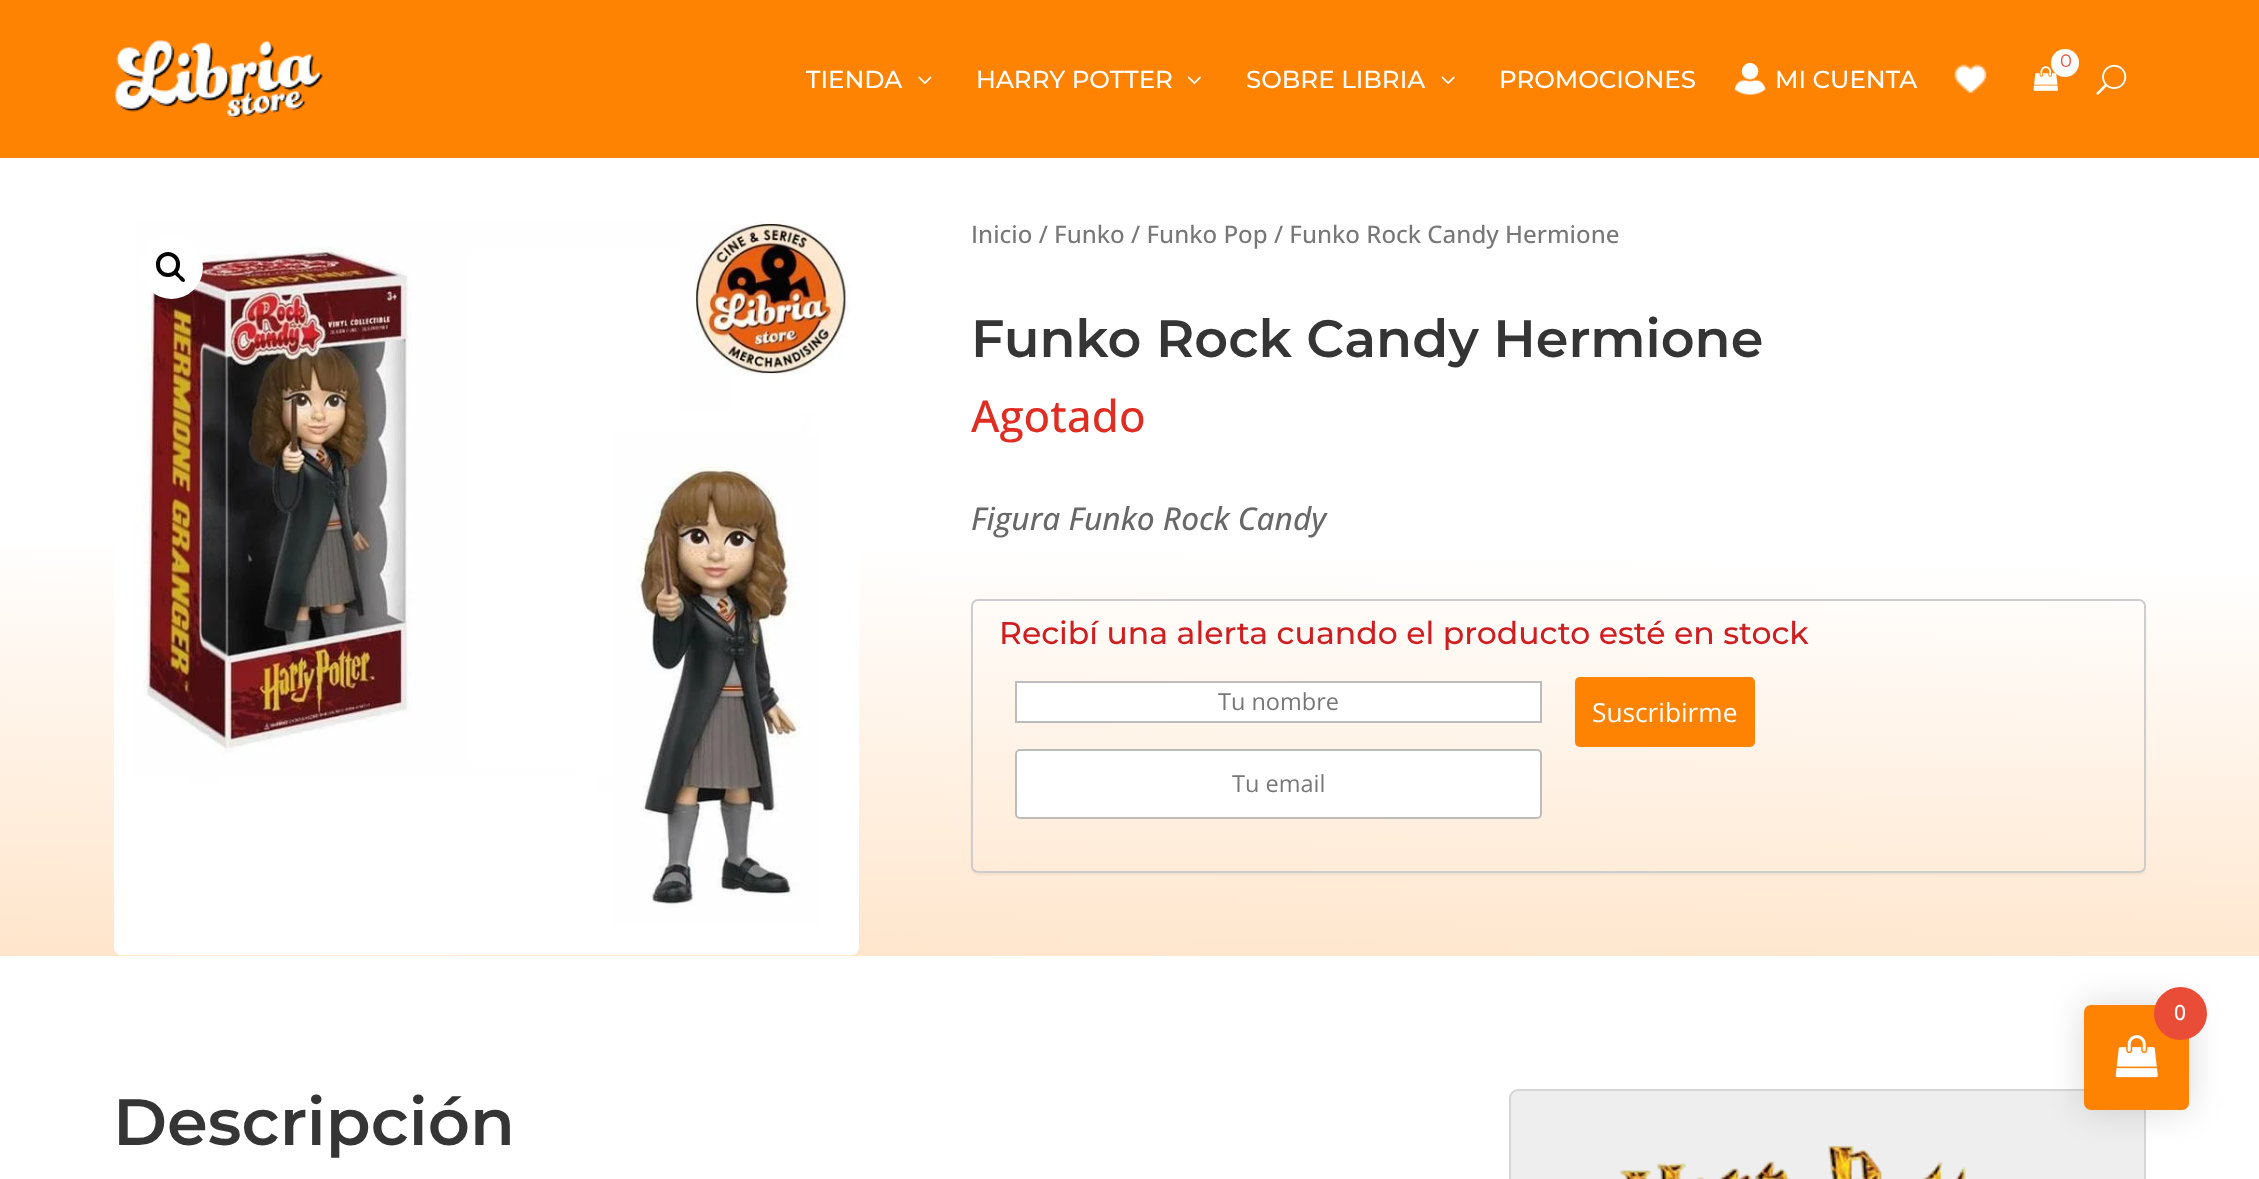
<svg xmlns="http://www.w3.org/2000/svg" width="2259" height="1179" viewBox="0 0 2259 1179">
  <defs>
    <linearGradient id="g1" gradientUnits="userSpaceOnUse" x1="1122" y1="975" x2="1137" y2="138"><stop offset="0" stop-color="#ffe5cb"/><stop offset="0.51" stop-color="#ffffff"/></linearGradient>
    <clipPath id="clip1"><path d="M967 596H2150V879H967ZM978 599H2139C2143 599 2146 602 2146 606V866C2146 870 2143 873 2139 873H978C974 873 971 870 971 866V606C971 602 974 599 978 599Z" clip-rule="evenodd"/></clipPath>
    <filter id="blur1" x="-50%" y="-200%" width="200%" height="500%"><feGaussianBlur stdDeviation="1"/></filter>
    <filter id="blur2" x="-50%" y="-200%" width="200%" height="500%"><feGaussianBlur stdDeviation="17.5"/></filter>
  </defs>
  <rect width="100%" height="100%" fill="#ffffff"/>
  <rect x="0" y="0" width="2259" height="158" fill="#ff8303"/>
  <image x="115" y="40" width="208" height="78" href="img1.png"/>
  <image x="2033" y="66" width="25" height="25" href="img2.png"/>
  <circle cx="2065" cy="63" r="14" fill="#ffffff"/>
  <text x="2060" y="67" font-family="'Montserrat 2'" font-size="18" font-weight="100" fill="#e94d37">0</text>
  <text x="806" y="88" font-family="Montserrat" font-size="24.5" font-weight="100" fill="#ffffff">TIENDA</text>
  <image x="918" y="76" width="14" height="8" href="img3.png"/>
  <text x="976" y="88" font-family="Montserrat" font-size="24.5" font-weight="100" fill="#ffffff">HARRY POTTER</text>
  <image x="1187" y="76" width="14" height="8" href="img4.png"/>
  <text x="1246" y="88" font-family="Montserrat" font-size="24.5" font-weight="100" fill="#ffffff">SOBRE LIBRIA</text>
  <image x="1441" y="76" width="14" height="8" href="img5.png"/>
  <text x="1499" y="88" font-family="Montserrat" font-size="24.5" font-weight="100" fill="#ffffff">PROMOCIONES</text>
  <image x="1734" y="63" width="32" height="32" href="img6.png"/>
  <text x="1775" y="88" font-family="Montserrat" font-size="24.5" font-weight="100" fill="#ffffff">MI CUENTA</text>
  <image x="1954" y="64" width="33" height="30" href="img7.png"/>
  <image x="2096" y="64" width="31" height="31" href="img8.png"/>
  <rect x="0" y="548" width="2259" height="408" fill="url(#g1)"/>
  <image x="114" y="220" width="745" height="736" href="img9.png"/>
  <circle cx="171.5" cy="267.5" r="31.5" fill="#ffffff"/>
  <rect x="158" y="254" width="20" height="21" rx="10" fill="none" stroke="#030303" stroke-width="4"/>
  <path d="M174.5 271.5C176.5 269.5 179.5 274 180.5 275.5C182 276.5 186.5 279.5 184.5 281.5C182.5 283.5 179.5 279 178 277.5C177 276.5 172.5 273.5 174.5 271.5Z" fill="#030303"/>
  <text x="971" y="243" font-family="Open Sans" font-size="24.15" font-weight="500" fill="#777777">Inicio / Funko / Funko Pop / Funko Rock Candy Hermione</text>
  <text x="971" y="357" font-family="Montserrat" font-size="52.5" font-weight="600" fill="#353535">Funko Rock Candy Hermione</text>
  <text x="971" y="432" font-family="Open Sans" font-size="44" font-weight="500" fill="#e02d22">Agotado</text>
  <text x="971" y="530" font-family="Open Sans" font-size="31.5" font-weight="500" font-style="italic" fill="#686868">Figura Funko Rock Candy</text>
  <g clip-path="url(#clip1)">
    <rect x="971" y="600" width="1175" height="275" rx="7" fill="#030303" fill-opacity="0.05" filter="url(#blur1)"/>
  </g>
  <rect x="972" y="600" width="1173" height="272" rx="6" fill="none" stroke="#cdcdcd" stroke-width="2"/>
  <text x="999" y="644" font-family="Montserrat" font-size="31.5" font-weight="100" fill="#ce1e21">Recibí una alerta cuando el producto esté en stock</text>
  <rect x="1016" y="682" width="525" height="40" fill="#ffffff" stroke="#bcbcbc" stroke-width="2"/>
  <text x="1218" y="710" font-family="Open Sans" font-size="23.5" fill="#777777">Tu nombre</text>
  <rect x="1016" y="750" width="525" height="68" rx="4" fill="#ffffff" stroke="#bcbcbc" stroke-width="2"/>
  <text x="1232" y="792" font-family="Open Sans" font-size="23.5" fill="#777777">Tu email</text>
  <rect x="1575" y="677" width="180" height="70" rx="5" fill="#ff8303"/>
  <text x="1592" y="722" font-family="Open Sans" font-size="26.25" fill="#ffffff">Suscribirme</text>
  <text x="113" y="1145" font-family="Montserrat" font-size="65.5" font-weight="600" fill="#353535">Descripción</text>
  <rect x="1510" y="1090" width="635" height="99" rx="8" fill="#eeeeee" stroke="#d6d6d6" stroke-width="2"/>
  <image x="1620" y="1145" width="346" height="34" href="img10.png"/>
  <rect x="2084" y="1005" width="105" height="105" rx="7" fill="#030303" fill-opacity="0.15" filter="url(#blur2)"/>
  <rect x="2084" y="1005" width="105" height="105" rx="7" fill="#ff8303"/>
  <image x="2115" y="1035" width="43" height="43" href="img11.png"/>
  <circle cx="2180.5" cy="1013.5" r="26.5" fill="#e94d37"/>
  <text x="2174" y="1020" font-family="Open Sans" font-size="21" font-weight="500" fill="#ffffff">0</text>
</svg>
